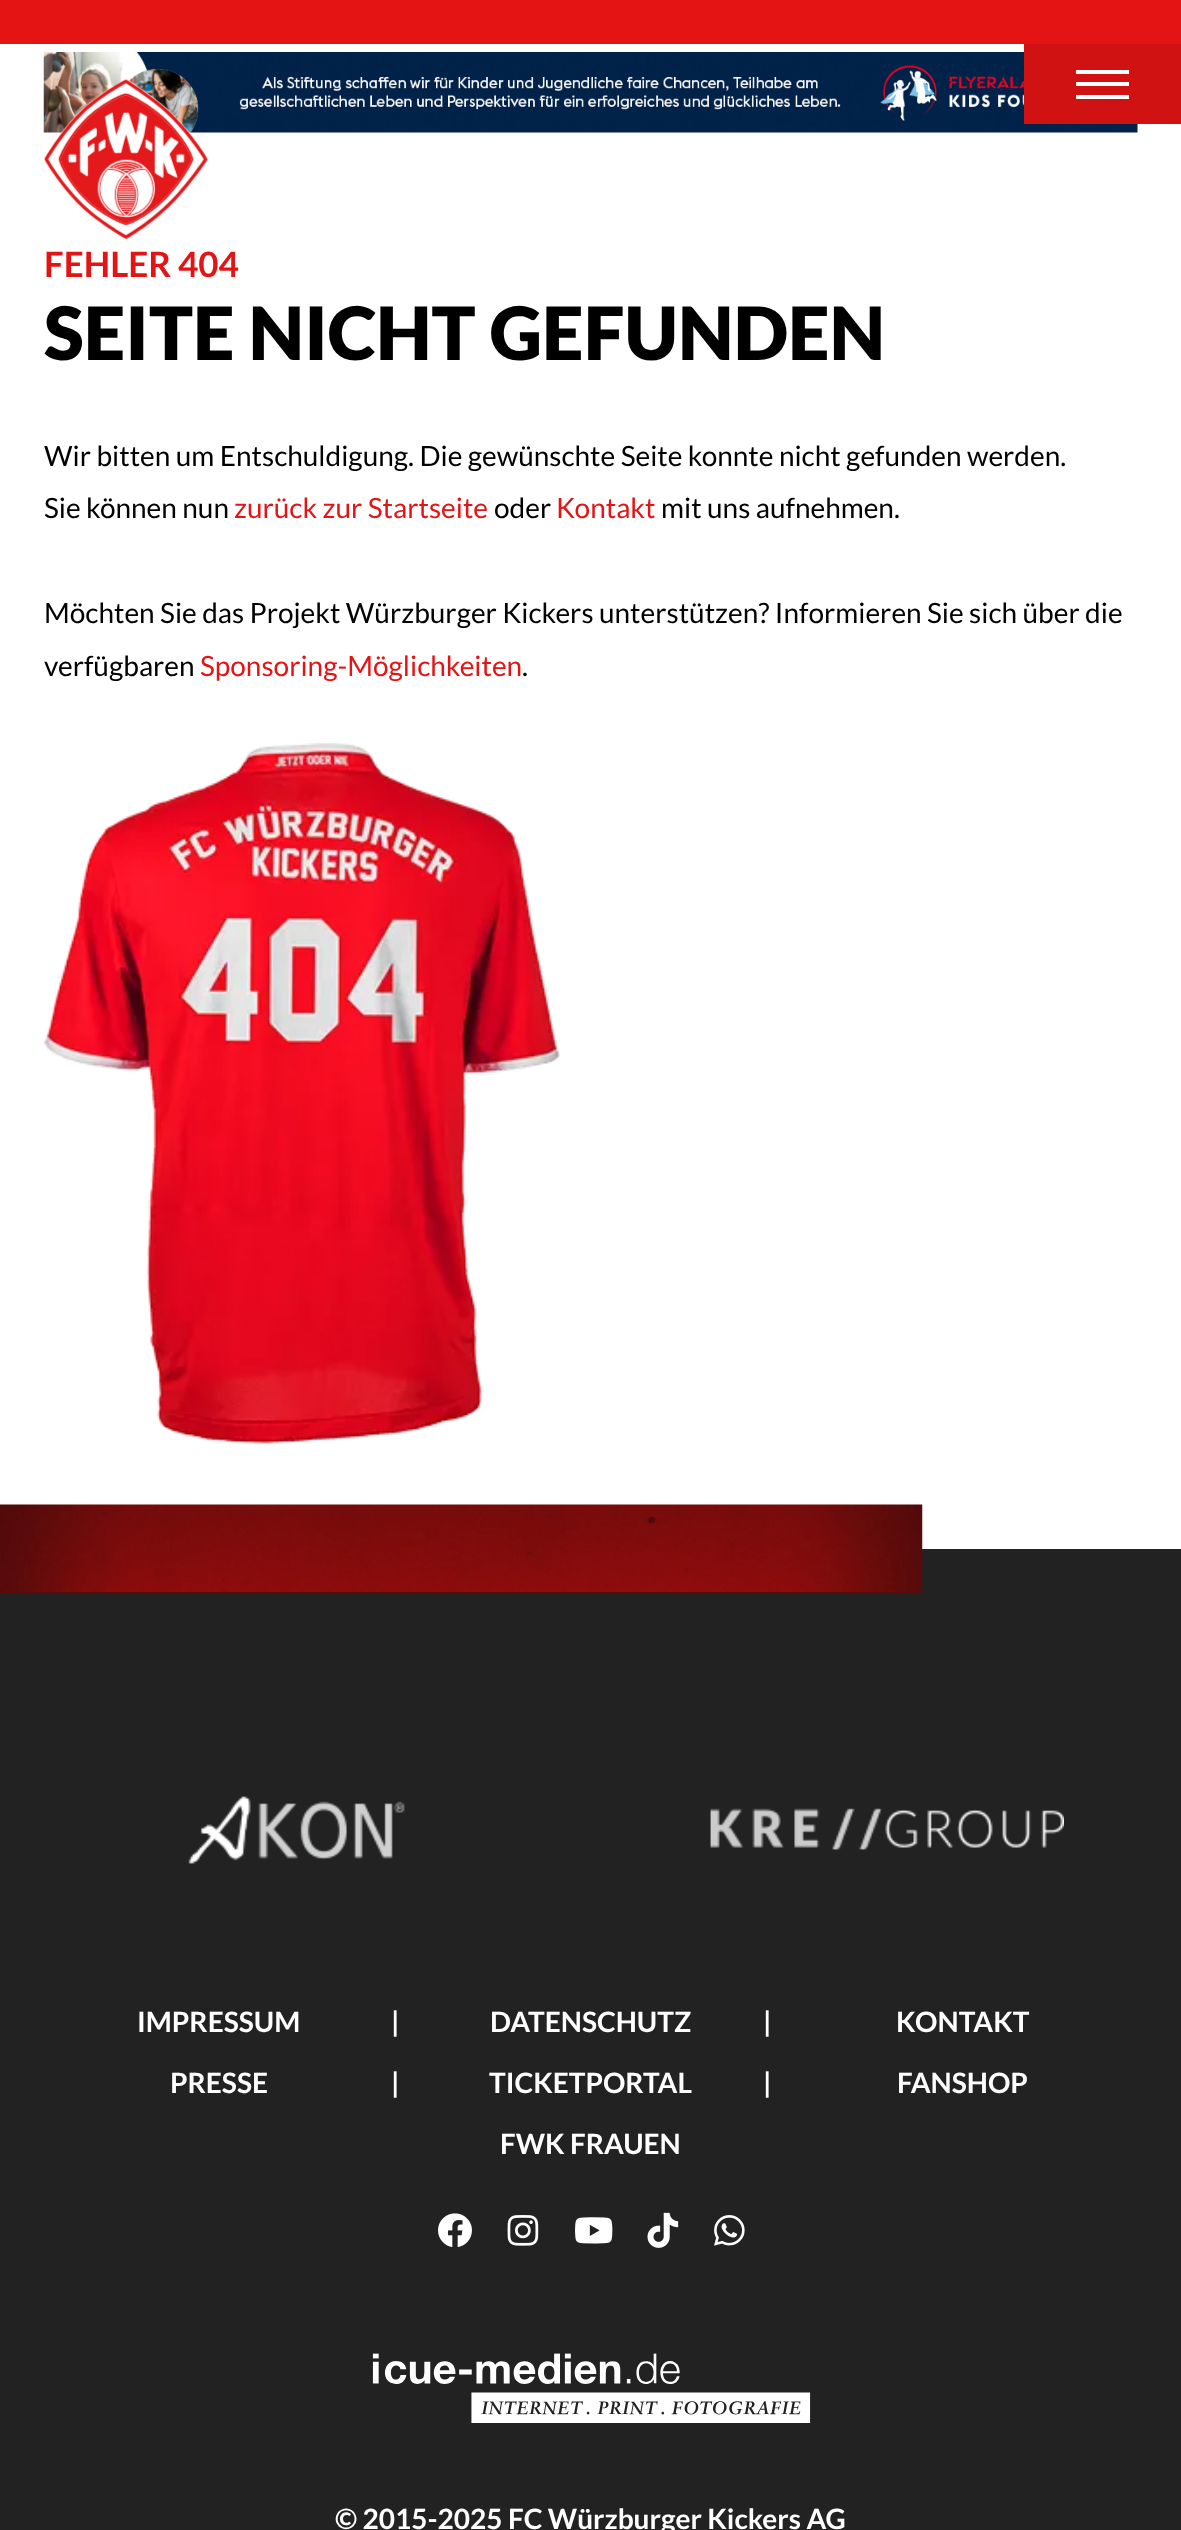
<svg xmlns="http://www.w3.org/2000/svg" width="1181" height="2530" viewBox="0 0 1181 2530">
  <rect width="100%" height="100%" fill="#ffffff"/>
  <rect x="0" y="0" width="1181" height="44" fill="#e41415"/>
  <image x="43" y="52" width="1095" height="81" href="img2.png"/>
  <image x="43" y="79" width="165" height="160" href="img1.png"/>
  <rect x="1024" y="44" width="157" height="80" fill="#d11213"/>
  <rect x="1076" y="70" width="53" height="4" fill="#ffffff"/>
  <rect x="1076" y="95" width="53" height="4" fill="#ffffff"/>
  <rect x="1076" y="82" width="53" height="4" fill="#ffffff"/>
  <text x="44" y="277" font-family="Lato" font-size="35" font-weight="bold" fill="#e41415">FEHLER 404</text>
  <text x="44" y="360" font-family="Lato" font-size="73.5" font-weight="900" fill="#000000">SEITE NICHT GEFUNDEN</text>
  <text x="44" y="466" font-family="Lato" font-size="28" fill="#000000">Wir bitten um Entschuldigung. Die gewünschte Seite konnte nicht gefunden werden.</text>
  <text x="44" y="518" font-family="Lato" font-size="28" fill="#000000">Sie können nun</text>
  <text x="234" y="518" font-family="Lato" font-size="28" fill="#e41415">zurück zur Startseite</text>
  <text x="494" y="518" font-family="Lato" font-size="28" fill="#000000">oder</text>
  <text x="556" y="518" font-family="Lato" font-size="28" fill="#e41415">Kontakt</text>
  <text x="661" y="518" font-family="Lato" font-size="28" fill="#000000">mit uns aufnehmen.</text>
  <text x="44" y="623" font-family="Lato" font-size="28" fill="#000000">Möchten Sie das Projekt Würzburger Kickers unterstützen? Informieren Sie sich über die</text>
  <text x="44" y="676" font-family="Lato" font-size="28" fill="#000000">verfügbaren</text>
  <text x="200" y="676" font-family="Lato" font-size="28" fill="#e41415">Sponsoring-Möglichkeiten</text>
  <text x="522" y="676" font-family="Lato" font-size="28" fill="#000000">.</text>
  <image x="43" y="743" width="517" height="701" href="img3.png"/>
  <rect x="0" y="1549" width="1181" height="981" fill="#222222"/>
  <rect x="0" y="1592" width="922" height="1" fill="#550a0b"/>
  <image x="0" y="1504" width="923" height="88" href="img4.png"/>
  <image x="188" y="1796" width="217" height="68" href="img5.png"/>
  <image x="710" y="1808" width="354" height="42" href="img6.png"/>
  <text x="137" y="2032" font-family="Lato" font-size="28" font-weight="bold" fill="#ffffff">IMPRESSUM</text>
  <text x="391" y="2032" font-family="Lato" font-size="28" font-weight="bold" fill="#ffffff">|</text>
  <text x="490" y="2032" font-family="Lato" font-size="28" font-weight="bold" fill="#ffffff">DATENSCHUTZ</text>
  <text x="763" y="2032" font-family="Lato" font-size="28" font-weight="bold" fill="#ffffff">|</text>
  <text x="896" y="2032" font-family="Lato" font-size="28" font-weight="bold" fill="#ffffff">KONTAKT</text>
  <text x="170" y="2093" font-family="Lato" font-size="28" font-weight="bold" fill="#ffffff">PRESSE</text>
  <text x="391" y="2093" font-family="Lato" font-size="28" font-weight="bold" fill="#ffffff">|</text>
  <text x="489" y="2093" font-family="Lato" font-size="28" font-weight="bold" fill="#ffffff">TICKETPORTAL</text>
  <text x="763" y="2093" font-family="Lato" font-size="28" font-weight="bold" fill="#ffffff">|</text>
  <text x="897" y="2093" font-family="Lato" font-size="28" font-weight="bold" fill="#ffffff">FANSHOP</text>
  <text x="500" y="2154" font-family="Lato" font-size="28" font-weight="bold" fill="#ffffff">FWK FRAUEN</text>
  <image x="438" y="2213" width="34" height="35" href="img7.png"/>
  <image x="507" y="2215" width="32" height="31" href="img8.png"/>
  <image x="575" y="2217" width="38" height="27" href="img9.png"/>
  <image x="647" y="2212" width="32" height="36" href="img10.png"/>
  <image x="714" y="2215" width="31" height="31" href="img11.png"/>
  <image x="372" y="2353" width="439" height="70" href="img12.png"/>
  <text x="335" y="2529" font-family="Lato" font-size="28" font-weight="bold" fill="#ffffff">© 2015-2025 FC Würzburger Kickers AG</text>
</svg>
